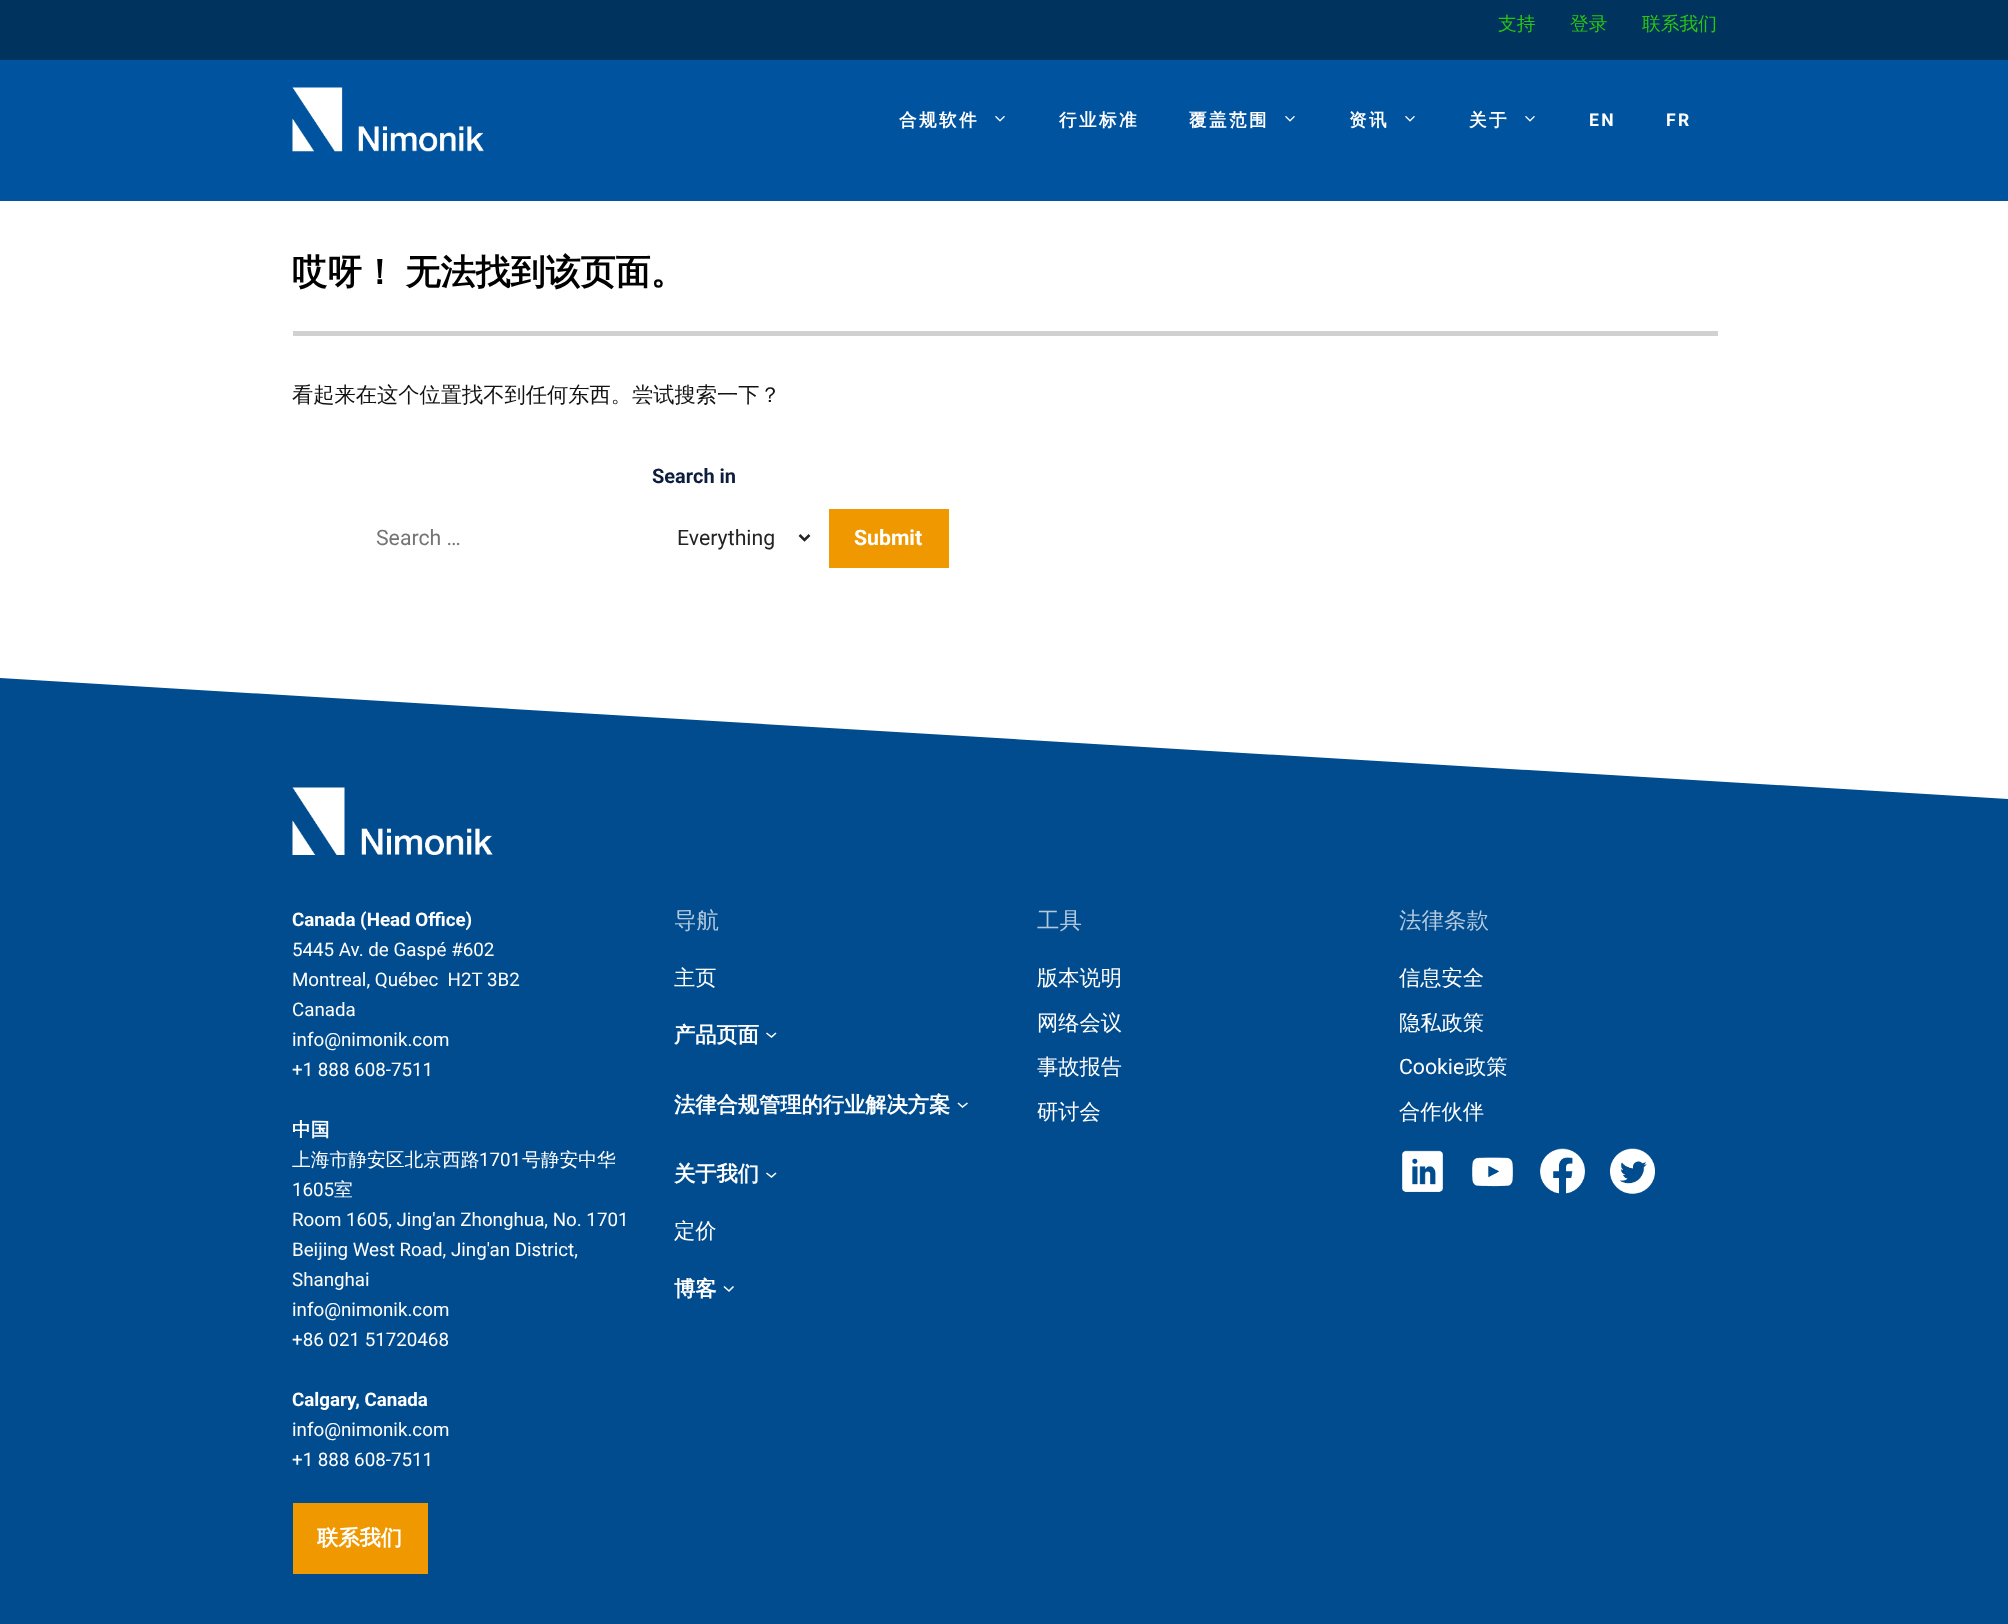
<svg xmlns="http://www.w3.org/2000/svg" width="2008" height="1624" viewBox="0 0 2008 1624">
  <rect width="100%" height="100%" fill="#ffffff"/>
  <rect x="0" y="0" width="2008" height="60" fill="#01335f"/>
  <text x="1498" y="30" font-family="WenQuanYi Zen Hei" font-size="18.75" font-weight="500" fill="#28c613">支持</text>
  <text x="1570" y="30" font-family="WenQuanYi Zen Hei" font-size="18.75" font-weight="500" fill="#28c613">登录</text>
  <text x="1642" y="30" font-family="WenQuanYi Zen Hei" font-size="18.75" font-weight="500" fill="#28c613">联系我们</text>
  <rect x="0" y="60" width="2008" height="141" fill="#00549f"/>
  <image x="292" y="87" width="192" height="65" href="img1.png"/>
  <text x="899" y="126" font-family="WenQuanYi Zen Hei" font-size="17.5" font-weight="bold" letter-spacing="2.5" fill="#ffffff">合规软件</text>
  <image x="995" y="116" width="10" height="6" href="img2.png"/>
  <text x="1059" y="126" font-family="WenQuanYi Zen Hei" font-size="17.5" font-weight="bold" letter-spacing="2.5" fill="#ffffff">行业标准</text>
  <text x="1189" y="126" font-family="WenQuanYi Zen Hei" font-size="17.5" font-weight="bold" letter-spacing="2.5" fill="#ffffff">覆盖范围</text>
  <image x="1285" y="116" width="10" height="6" href="img2.png"/>
  <text x="1349" y="126" font-family="WenQuanYi Zen Hei" font-size="17.5" font-weight="bold" letter-spacing="2.5" fill="#ffffff">资讯</text>
  <image x="1405" y="116" width="10" height="6" href="img2.png"/>
  <text x="1469" y="126" font-family="WenQuanYi Zen Hei" font-size="17.5" font-weight="bold" letter-spacing="2.5" fill="#ffffff">关于</text>
  <image x="1525" y="116" width="10" height="6" href="img2.png"/>
  <text x="1589" y="126" font-family="Roboto" font-size="17.5" font-weight="bold" letter-spacing="2.5" fill="#ffffff">EN</text>
  <text x="1666" y="126" font-family="Roboto" font-size="17.5" font-weight="bold" letter-spacing="2.5" fill="#ffffff">FR</text>
  <rect x="293" y="331" width="1425" height="5" fill="#d1d1d1"/>
  <text x="292" y="284" word-spacing="-2" font-family="WenQuanYi Zen Hei" font-size="35" font-weight="bold" fill="#000000">哎呀！ 无法找到该页面。</text>
  <text x="292" y="402" font-family="WenQuanYi Zen Hei" font-size="21.25" font-weight="500" fill="#121212">看起来在这个位置找不到任何东西。尝试搜索一下？</text>
  <text x="376" y="545" font-family="Roboto" font-size="21.25" fill="#757575">Search …</text>
  <text x="652" y="483" font-family="Roboto" font-size="20" font-weight="bold" fill="#0c1d3d">Search in</text>
  <path d="M799.5 535L804.5 540L809.5 535" fill="none" stroke="#242424" stroke-width="2.5"/>
  <text x="677" y="545" font-family="Roboto" font-size="21.25" fill="#242424">Everything</text>
  <rect x="829" y="509" width="120" height="59" fill="#f09800"/>
  <text x="854" y="545" font-family="Roboto" font-size="21.25" font-weight="bold" fill="#ffffff">Submit</text>
  <rect x="0" y="678" width="2008" height="946" fill="#014c8f"/>
  <path d="M-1 674H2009V799L-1 678Z" fill="#ffffff"/>
  <image x="292" y="787" width="201" height="68" href="img3.png"/>
  <text x="292" y="926" font-family="Roboto" font-size="18.75" font-weight="bold" fill="#ffffff">Canada (Head Office)</text>
  <text x="292" y="956" font-family="Roboto" font-size="18.75" fill="#ffffff">5445 Av. de Gaspé #602</text>
  <text x="292" y="986" font-family="Roboto" font-size="18.75" fill="#ffffff" xml:space="preserve">Montreal, Québec  H2T 3B2</text>
  <text x="292" y="1016" font-family="Roboto" font-size="18.75" fill="#ffffff">Canada</text>
  <text x="292" y="1046" font-family="Roboto" font-size="18.75" fill="#ffffff">info@nimonik.com</text>
  <text x="292" y="1076" font-family="Roboto" font-size="18.75" fill="#ffffff">+1 888 608-7511</text>
  <text x="292" y="1136" font-family="WenQuanYi Zen Hei" font-size="18.75" font-weight="bold" fill="#ffffff">中国</text>
  <text x="292" y="1166" font-family="WenQuanYi Zen Hei" font-size="18.75" font-weight="500" fill="#ffffff">上海市静安区北京西路</text>
  <text x="479" y="1166" font-family="Roboto" font-size="18.75" fill="#ffffff">1701</text>
  <text x="522" y="1166" font-family="WenQuanYi Zen Hei" font-size="18.75" font-weight="500" fill="#ffffff">号静安中华</text>
  <text x="292" y="1196" font-family="Roboto" font-size="18.75" fill="#ffffff">1605</text>
  <text x="334" y="1196" font-family="WenQuanYi Zen Hei" font-size="18.75" font-weight="500" fill="#ffffff">室</text>
  <text x="292" y="1226" font-family="Roboto" font-size="18.75" fill="#ffffff">Room 1605, Jing'an Zhonghua, No. 1701</text>
  <text x="292" y="1256" font-family="Roboto" font-size="18.75" fill="#ffffff">Beijing West Road, Jing'an District,</text>
  <text x="292" y="1286" font-family="Roboto" font-size="18.75" fill="#ffffff">Shanghai</text>
  <text x="292" y="1316" font-family="Roboto" font-size="18.75" fill="#ffffff">info@nimonik.com</text>
  <text x="292" y="1346" font-family="Roboto" font-size="18.75" fill="#ffffff">+86 021 51720468</text>
  <text x="292" y="1406" font-family="Roboto" font-size="18.75" font-weight="bold" fill="#ffffff">Calgary, Canada</text>
  <text x="292" y="1436" font-family="Roboto" font-size="18.75" fill="#ffffff">info@nimonik.com</text>
  <text x="292" y="1466" font-family="Roboto" font-size="18.75" fill="#ffffff">+1 888 608-7511</text>
  <rect x="293" y="1503" width="135" height="71" fill="#f09800"/>
  <text x="317" y="1545" font-family="WenQuanYi Zen Hei" font-size="21.25" font-weight="bold" fill="#ffffff">联系我们</text>
  <text x="674" y="928" font-family="WenQuanYi Zen Hei" font-size="22.5" font-weight="500" fill="#b3c9dd">导航</text>
  <text x="674" y="985" font-family="WenQuanYi Zen Hei" font-size="21.25" font-weight="500" fill="#ffffff">主页</text>
  <text x="674" y="1042" font-family="WenQuanYi Zen Hei" font-size="21.25" font-weight="bold" fill="#ffffff">产品页面</text>
  <path d="M766.5 1033L771.5 1037L776 1033" fill="none" stroke="#ffffff" stroke-width="1.6"/>
  <text x="674" y="1112" font-family="WenQuanYi Zen Hei" font-size="21.25" font-weight="bold" fill="#ffffff">法律合规管理的行业解决方案</text>
  <path d="M958 1103L962.5 1107L967.5 1103" fill="none" stroke="#ffffff" stroke-width="1.6"/>
  <text x="674" y="1181" font-family="WenQuanYi Zen Hei" font-size="21.25" font-weight="bold" fill="#ffffff">关于我们</text>
  <path d="M766.5 1173L771.5 1177L776 1173" fill="none" stroke="#ffffff" stroke-width="1.6"/>
  <text x="674" y="1238" font-family="WenQuanYi Zen Hei" font-size="21.25" font-weight="500" fill="#ffffff">定价</text>
  <text x="674" y="1296" font-family="WenQuanYi Zen Hei" font-size="21.25" font-weight="bold" fill="#ffffff">博客</text>
  <path d="M724 1286.5L729 1291L733.5 1286.5" fill="none" stroke="#ffffff" stroke-width="1.6"/>
  <text x="1037" y="928" font-family="WenQuanYi Zen Hei" font-size="22.5" font-weight="500" fill="#b3c9dd">工具</text>
  <text x="1037" y="985" font-family="WenQuanYi Zen Hei" font-size="21.25" font-weight="500" fill="#ffffff">版本说明</text>
  <text x="1037" y="1030" font-family="WenQuanYi Zen Hei" font-size="21.25" font-weight="500" fill="#ffffff">网络会议</text>
  <text x="1037" y="1074" font-family="WenQuanYi Zen Hei" font-size="21.25" font-weight="500" fill="#ffffff">事故报告</text>
  <text x="1037" y="1119" font-family="WenQuanYi Zen Hei" font-size="21.25" font-weight="500" fill="#ffffff">研讨会</text>
  <text x="1399" y="928" font-family="WenQuanYi Zen Hei" font-size="22.5" font-weight="500" fill="#b3c9dd">法律条款</text>
  <text x="1399" y="985" font-family="WenQuanYi Zen Hei" font-size="21.25" font-weight="500" fill="#ffffff">信息安全</text>
  <text x="1399" y="1030" font-family="WenQuanYi Zen Hei" font-size="21.25" font-weight="500" fill="#ffffff">隐私政策</text>
  <text x="1399" y="1074" font-family="Roboto" font-size="21.25" fill="#ffffff">Cookie</text>
  <text x="1465" y="1074" font-family="WenQuanYi Zen Hei" font-size="21.25" font-weight="500" fill="#ffffff">政策</text>
  <text x="1399" y="1119" font-family="WenQuanYi Zen Hei" font-size="21.25" font-weight="500" fill="#ffffff">合作伙伴</text>
  <image x="1402" y="1150" width="41" height="42" href="img4.png"/>
  <image x="1472" y="1157" width="41" height="30" href="img5.png"/>
  <image x="1540" y="1148" width="45" height="46" href="img6.png"/>
  <image x="1610" y="1148" width="45" height="46" href="img7.png"/>
</svg>
